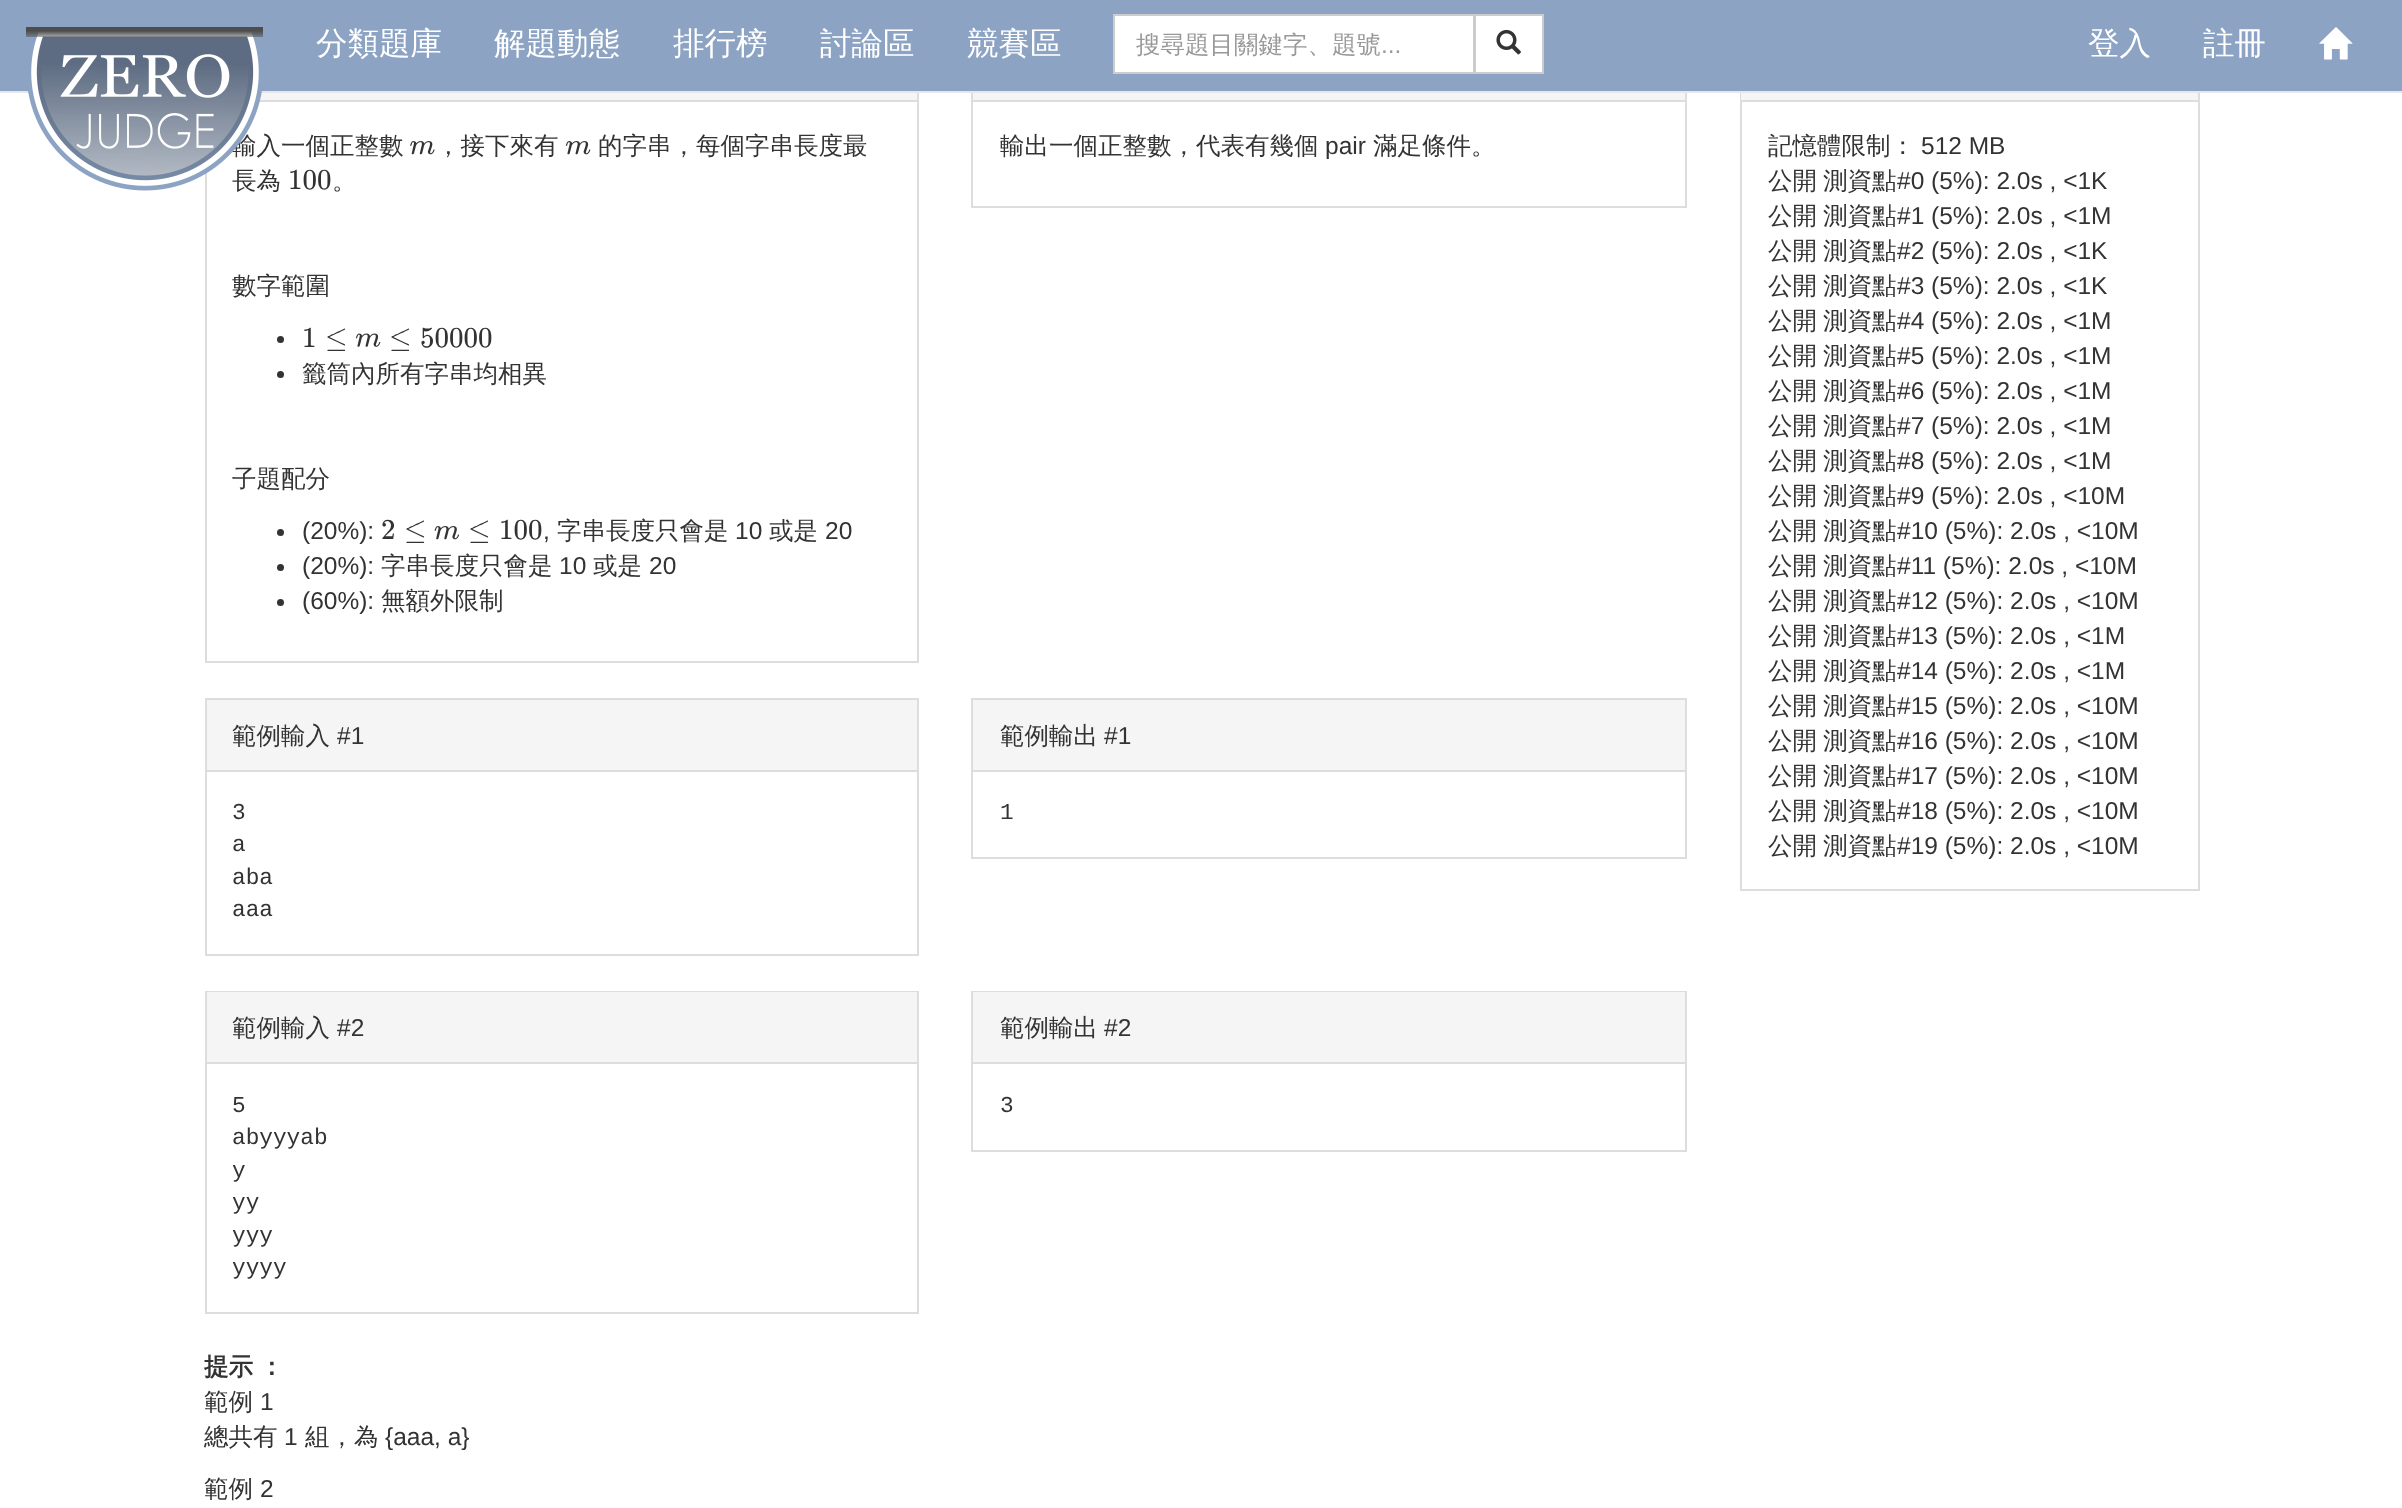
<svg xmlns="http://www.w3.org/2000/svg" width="2402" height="1508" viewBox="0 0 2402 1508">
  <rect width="100%" height="100%" fill="#ffffff"/>
  <rect x="206" y="29" width="712" height="633" fill="none" stroke="#dddddd" stroke-width="2"/>
  <rect x="972" y="29" width="714" height="178" fill="none" stroke="#dddddd" stroke-width="2"/>
  <rect x="1741" y="29" width="458" height="861" fill="none" stroke="#dddddd" stroke-width="2"/>
  <rect x="0" y="0" width="2402" height="91" fill="#8ca3c3"/>
  <rect x="0" y="91" width="2402" height="2" fill="#e7e7e7"/>
  <rect x="260" y="93" width="657" height="7" fill="#f5f5f5"/>
  <rect x="259" y="100" width="658" height="2" fill="#dddddd"/>
  <text x="232" y="154" font-family="WenQuanYi Zen Hei" font-size="24.5" font-weight="500" fill="#333333">輸入一個正整數</text>
  <text x="232" y="189" font-family="WenQuanYi Zen Hei" font-size="24.5" font-weight="500" fill="#333333">長為</text>
  <image x="26" y="27" width="237" height="164" href="img1.png"/>
  <text x="316" y="54" font-family="WenQuanYi Zen Hei" font-size="31.5" font-weight="500" fill="#ffffff">分類題庫</text>
  <text x="494" y="54" font-family="WenQuanYi Zen Hei" font-size="31.5" font-weight="500" fill="#ffffff">解題動態</text>
  <text x="673" y="54" font-family="WenQuanYi Zen Hei" font-size="31.5" font-weight="500" fill="#ffffff">排行榜</text>
  <text x="820" y="54" font-family="WenQuanYi Zen Hei" font-size="31.5" font-weight="500" fill="#ffffff">討論區</text>
  <text x="967" y="54" font-family="WenQuanYi Zen Hei" font-size="31.5" font-weight="500" fill="#ffffff">競賽區</text>
  <rect x="1114" y="15" width="360" height="58" fill="#ffffff" stroke="#cccccc" stroke-width="2"/>
  <text x="1136" y="53" font-family="WenQuanYi Zen Hei" font-size="24.5" font-weight="500" fill="#999999">搜尋題目關鍵字、題號</text>
  <text x="1381" y="53" font-family="Liberation Sans" font-size="24.5" fill="#999999">...</text>
  <rect x="1475" y="15" width="68" height="58" fill="#ffffff" stroke="#cccccc" stroke-width="2"/>
  <image x="1496" y="29" width="25" height="26" href="img2.png"/>
  <text x="2088" y="54" font-family="WenQuanYi Zen Hei" font-size="31.5" font-weight="500" fill="#ffffff">登入</text>
  <text x="2203" y="54" font-family="WenQuanYi Zen Hei" font-size="31.5" font-weight="500" fill="#ffffff">註冊</text>
  <image x="2319" y="27" width="34" height="33" href="img3.png"/>
  <image x="410" y="141" width="25" height="14" href="img4.png"/>
  <text x="436" y="154" font-family="WenQuanYi Zen Hei" font-size="24.5" font-weight="500" fill="#333333">，接下來有</text>
  <image x="565" y="141" width="26" height="14" href="img5.png"/>
  <text x="598" y="154" font-family="WenQuanYi Zen Hei" font-size="24.5" font-weight="500" fill="#333333">的字串，每個字串長度最</text>
  <text x="288" y="189" font-family="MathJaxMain" font-size="29" fill="#333333">100</text>
  <text x="332" y="189" font-family="WenQuanYi Zen Hei" font-size="24.5" font-weight="500" fill="#333333">。</text>
  <text x="232" y="294" font-family="WenQuanYi Zen Hei" font-size="24.5" font-weight="500" fill="#333333">數字範圍</text>
  <circle cx="280.5" cy="339.5" r="3.5" fill="#333333"/>
  <text x="302" y="347" font-family="MathJaxMain" font-size="29" fill="#333333">1</text>
  <text x="325" y="347" font-family="MathJaxMain" font-size="29" fill="#333333">≤</text>
  <image x="355" y="333" width="26" height="14" href="img6.png"/>
  <text x="389" y="347" font-family="MathJaxMain" font-size="29" fill="#333333">≤</text>
  <text x="420" y="347" font-family="MathJaxMain" font-size="29" fill="#333333">50000</text>
  <circle cx="280.5" cy="374.5" r="3.5" fill="#333333"/>
  <text x="302" y="382" font-family="WenQuanYi Zen Hei" font-size="24.5" font-weight="500" fill="#333333">籤筒內所有字串均相異</text>
  <text x="232" y="487" font-family="WenQuanYi Zen Hei" font-size="24.5" font-weight="500" fill="#333333">子題配分</text>
  <circle cx="280.5" cy="532.5" r="3.5" fill="#333333"/>
  <text x="302" y="539" font-family="Liberation Sans" font-size="24.5" fill="#333333">(20%):</text>
  <text x="381" y="539" font-family="MathJaxMain" font-size="29" fill="#333333">2</text>
  <text x="404" y="539" font-family="MathJaxMain" font-size="29" fill="#333333">≤</text>
  <image x="434" y="526" width="26" height="14" href="img7.png"/>
  <text x="468" y="539" font-family="MathJaxMain" font-size="29" fill="#333333">≤</text>
  <text x="499" y="539" font-family="MathJaxMain" font-size="29" fill="#333333">100</text>
  <text x="557" y="539" font-family="WenQuanYi Zen Hei" font-size="24.5" font-weight="500" fill="#333333">字串長度只會是</text>
  <text x="735" y="539" font-family="Liberation Sans" font-size="24.5" fill="#333333">10</text>
  <text x="769" y="539" font-family="WenQuanYi Zen Hei" font-size="24.5" font-weight="500" fill="#333333">或是</text>
  <text x="825" y="539" font-family="Liberation Sans" font-size="24.5" fill="#333333">20</text>
  <text x="543" y="539" font-family="Liberation Sans" font-size="24.5" fill="#333333">,</text>
  <circle cx="280.5" cy="567.5" r="3.5" fill="#333333"/>
  <text x="302" y="574" font-family="Liberation Sans" font-size="24.5" fill="#333333">(20%):</text>
  <text x="381" y="574" font-family="WenQuanYi Zen Hei" font-size="24.5" font-weight="500" fill="#333333">字串長度只會是</text>
  <text x="559" y="574" font-family="Liberation Sans" font-size="24.5" fill="#333333">10</text>
  <text x="593" y="574" font-family="WenQuanYi Zen Hei" font-size="24.5" font-weight="500" fill="#333333">或是</text>
  <text x="649" y="574" font-family="Liberation Sans" font-size="24.5" fill="#333333">20</text>
  <circle cx="280.5" cy="602.5" r="3.5" fill="#333333"/>
  <text x="302" y="609" font-family="Liberation Sans" font-size="24.5" fill="#333333">(60%):</text>
  <text x="381" y="609" font-family="WenQuanYi Zen Hei" font-size="24.5" font-weight="500" fill="#333333">無額外限制</text>
  <rect x="973" y="93" width="712" height="7" fill="#f5f5f5"/>
  <rect x="973" y="100" width="712" height="2" fill="#dddddd"/>
  <text x="1000" y="154" font-family="WenQuanYi Zen Hei" font-size="24.5" font-weight="500" fill="#333333">輸出一個正整數，代表有幾個</text>
  <text x="1325" y="154" font-family="Liberation Sans" font-size="24.5" fill="#333333">pair</text>
  <text x="1373" y="154" font-family="WenQuanYi Zen Hei" font-size="24.5" font-weight="500" fill="#333333">滿足條件。</text>
  <rect x="206" y="699" width="712" height="256" fill="none" stroke="#dddddd" stroke-width="2"/>
  <rect x="207" y="700" width="710" height="70" fill="#f5f5f5"/>
  <rect x="207" y="770" width="710" height="2" fill="#dddddd"/>
  <text x="232" y="744" font-family="WenQuanYi Zen Hei" font-size="24.5" font-weight="500" fill="#333333">範例輸入</text>
  <text x="337" y="744" font-family="Liberation Sans" font-size="24.5" fill="#333333">#1</text>
  <text x="232" y="819" font-family="Liberation Mono" font-size="22.75" fill="#333333">3</text>
  <text x="232" y="851" font-family="Liberation Mono" font-size="22.75" fill="#333333">a</text>
  <text x="232" y="884" font-family="Liberation Mono" font-size="22.75" fill="#333333">aba</text>
  <text x="232" y="916" font-family="Liberation Mono" font-size="22.75" fill="#333333">aaa</text>
  <rect x="972" y="699" width="714" height="159" fill="none" stroke="#dddddd" stroke-width="2"/>
  <rect x="973" y="700" width="712" height="70" fill="#f5f5f5"/>
  <rect x="973" y="770" width="712" height="2" fill="#dddddd"/>
  <text x="1000" y="744" font-family="WenQuanYi Zen Hei" font-size="24.5" font-weight="500" fill="#333333">範例輸出</text>
  <text x="1104" y="744" font-family="Liberation Sans" font-size="24.5" fill="#333333">#1</text>
  <text x="1000" y="819" font-family="Liberation Mono" font-size="22.75" fill="#333333">1</text>
  <rect x="206" y="992" width="712" height="321" fill="none" stroke="#dddddd" stroke-width="2"/>
  <rect x="207" y="992" width="710" height="70" fill="#f5f5f5"/>
  <rect x="207" y="1062" width="710" height="2" fill="#dddddd"/>
  <text x="232" y="1036" font-family="WenQuanYi Zen Hei" font-size="24.5" font-weight="500" fill="#333333">範例輸入</text>
  <text x="337" y="1036" font-family="Liberation Sans" font-size="24.5" fill="#333333">#2</text>
  <text x="232" y="1112" font-family="Liberation Mono" font-size="22.75" fill="#333333">5</text>
  <text x="232" y="1144" font-family="Liberation Mono" font-size="22.75" fill="#333333">abyyyab</text>
  <text x="232" y="1177" font-family="Liberation Mono" font-size="22.75" fill="#333333">y</text>
  <text x="232" y="1209" font-family="Liberation Mono" font-size="22.75" fill="#333333">yy</text>
  <text x="232" y="1242" font-family="Liberation Mono" font-size="22.75" fill="#333333">yyy</text>
  <text x="232" y="1274" font-family="Liberation Mono" font-size="22.75" fill="#333333">yyyy</text>
  <rect x="972" y="992" width="714" height="159" fill="none" stroke="#dddddd" stroke-width="2"/>
  <rect x="973" y="992" width="712" height="70" fill="#f5f5f5"/>
  <rect x="973" y="1062" width="712" height="2" fill="#dddddd"/>
  <text x="1000" y="1036" font-family="WenQuanYi Zen Hei" font-size="24.5" font-weight="500" fill="#333333">範例輸出</text>
  <text x="1104" y="1036" font-family="Liberation Sans" font-size="24.5" fill="#333333">#2</text>
  <text x="1000" y="1112" font-family="Liberation Mono" font-size="22.75" fill="#333333">3</text>
  <rect x="1741" y="93" width="457" height="7" fill="#f5f5f5"/>
  <rect x="1741" y="100" width="457" height="2" fill="#dddddd"/>
  <text x="1768" y="154" font-family="WenQuanYi Zen Hei" font-size="24.5" font-weight="500" fill="#333333">記憶體限制：</text>
  <text x="1921" y="154" font-family="Liberation Sans" font-size="24.5" fill="#333333">512 MB</text>
  <text x="1768" y="189" font-family="WenQuanYi Zen Hei" font-size="24.5" font-weight="500" fill="#333333">公開</text>
  <text x="1823" y="189" font-family="WenQuanYi Zen Hei" font-size="24.5" font-weight="500" fill="#333333">測資點</text>
  <text x="1897" y="189" font-family="Liberation Sans" font-size="24.5" fill="#333333">#0 (5%): 2.0s , &lt;1K</text>
  <text x="1768" y="224" font-family="WenQuanYi Zen Hei" font-size="24.5" font-weight="500" fill="#333333">公開</text>
  <text x="1823" y="224" font-family="WenQuanYi Zen Hei" font-size="24.5" font-weight="500" fill="#333333">測資點</text>
  <text x="1897" y="224" font-family="Liberation Sans" font-size="24.5" fill="#333333">#1 (5%): 2.0s , &lt;1M</text>
  <text x="1768" y="259" font-family="WenQuanYi Zen Hei" font-size="24.5" font-weight="500" fill="#333333">公開</text>
  <text x="1823" y="259" font-family="WenQuanYi Zen Hei" font-size="24.5" font-weight="500" fill="#333333">測資點</text>
  <text x="1897" y="259" font-family="Liberation Sans" font-size="24.5" fill="#333333">#2 (5%): 2.0s , &lt;1K</text>
  <text x="1768" y="294" font-family="WenQuanYi Zen Hei" font-size="24.5" font-weight="500" fill="#333333">公開</text>
  <text x="1823" y="294" font-family="WenQuanYi Zen Hei" font-size="24.5" font-weight="500" fill="#333333">測資點</text>
  <text x="1897" y="294" font-family="Liberation Sans" font-size="24.5" fill="#333333">#3 (5%): 2.0s , &lt;1K</text>
  <text x="1768" y="329" font-family="WenQuanYi Zen Hei" font-size="24.5" font-weight="500" fill="#333333">公開</text>
  <text x="1823" y="329" font-family="WenQuanYi Zen Hei" font-size="24.5" font-weight="500" fill="#333333">測資點</text>
  <text x="1897" y="329" font-family="Liberation Sans" font-size="24.5" fill="#333333">#4 (5%): 2.0s , &lt;1M</text>
  <text x="1768" y="364" font-family="WenQuanYi Zen Hei" font-size="24.5" font-weight="500" fill="#333333">公開</text>
  <text x="1823" y="364" font-family="WenQuanYi Zen Hei" font-size="24.5" font-weight="500" fill="#333333">測資點</text>
  <text x="1897" y="364" font-family="Liberation Sans" font-size="24.5" fill="#333333">#5 (5%): 2.0s , &lt;1M</text>
  <text x="1768" y="399" font-family="WenQuanYi Zen Hei" font-size="24.5" font-weight="500" fill="#333333">公開</text>
  <text x="1823" y="399" font-family="WenQuanYi Zen Hei" font-size="24.5" font-weight="500" fill="#333333">測資點</text>
  <text x="1897" y="399" font-family="Liberation Sans" font-size="24.5" fill="#333333">#6 (5%): 2.0s , &lt;1M</text>
  <text x="1768" y="434" font-family="WenQuanYi Zen Hei" font-size="24.5" font-weight="500" fill="#333333">公開</text>
  <text x="1823" y="434" font-family="WenQuanYi Zen Hei" font-size="24.5" font-weight="500" fill="#333333">測資點</text>
  <text x="1897" y="434" font-family="Liberation Sans" font-size="24.5" fill="#333333">#7 (5%): 2.0s , &lt;1M</text>
  <text x="1768" y="469" font-family="WenQuanYi Zen Hei" font-size="24.5" font-weight="500" fill="#333333">公開</text>
  <text x="1823" y="469" font-family="WenQuanYi Zen Hei" font-size="24.5" font-weight="500" fill="#333333">測資點</text>
  <text x="1897" y="469" font-family="Liberation Sans" font-size="24.5" fill="#333333">#8 (5%): 2.0s , &lt;1M</text>
  <text x="1768" y="504" font-family="WenQuanYi Zen Hei" font-size="24.5" font-weight="500" fill="#333333">公開</text>
  <text x="1823" y="504" font-family="WenQuanYi Zen Hei" font-size="24.5" font-weight="500" fill="#333333">測資點</text>
  <text x="1897" y="504" font-family="Liberation Sans" font-size="24.5" fill="#333333">#9 (5%): 2.0s , &lt;10M</text>
  <text x="1768" y="539" font-family="WenQuanYi Zen Hei" font-size="24.5" font-weight="500" fill="#333333">公開</text>
  <text x="1823" y="539" font-family="WenQuanYi Zen Hei" font-size="24.5" font-weight="500" fill="#333333">測資點</text>
  <text x="1897" y="539" font-family="Liberation Sans" font-size="24.5" fill="#333333">#10 (5%): 2.0s , &lt;10M</text>
  <text x="1768" y="574" font-family="WenQuanYi Zen Hei" font-size="24.5" font-weight="500" fill="#333333">公開</text>
  <text x="1823" y="574" font-family="WenQuanYi Zen Hei" font-size="24.5" font-weight="500" fill="#333333">測資點</text>
  <text x="1897" y="574" font-family="Liberation Sans" font-size="24.5" fill="#333333">#11 (5%): 2.0s , &lt;10M</text>
  <text x="1768" y="609" font-family="WenQuanYi Zen Hei" font-size="24.5" font-weight="500" fill="#333333">公開</text>
  <text x="1823" y="609" font-family="WenQuanYi Zen Hei" font-size="24.5" font-weight="500" fill="#333333">測資點</text>
  <text x="1897" y="609" font-family="Liberation Sans" font-size="24.5" fill="#333333">#12 (5%): 2.0s , &lt;10M</text>
  <text x="1768" y="644" font-family="WenQuanYi Zen Hei" font-size="24.5" font-weight="500" fill="#333333">公開</text>
  <text x="1823" y="644" font-family="WenQuanYi Zen Hei" font-size="24.5" font-weight="500" fill="#333333">測資點</text>
  <text x="1897" y="644" font-family="Liberation Sans" font-size="24.5" fill="#333333">#13 (5%): 2.0s , &lt;1M</text>
  <text x="1768" y="679" font-family="WenQuanYi Zen Hei" font-size="24.5" font-weight="500" fill="#333333">公開</text>
  <text x="1823" y="679" font-family="WenQuanYi Zen Hei" font-size="24.5" font-weight="500" fill="#333333">測資點</text>
  <text x="1897" y="679" font-family="Liberation Sans" font-size="24.5" fill="#333333">#14 (5%): 2.0s , &lt;1M</text>
  <text x="1768" y="714" font-family="WenQuanYi Zen Hei" font-size="24.5" font-weight="500" fill="#333333">公開</text>
  <text x="1823" y="714" font-family="WenQuanYi Zen Hei" font-size="24.5" font-weight="500" fill="#333333">測資點</text>
  <text x="1897" y="714" font-family="Liberation Sans" font-size="24.5" fill="#333333">#15 (5%): 2.0s , &lt;10M</text>
  <text x="1768" y="749" font-family="WenQuanYi Zen Hei" font-size="24.5" font-weight="500" fill="#333333">公開</text>
  <text x="1823" y="749" font-family="WenQuanYi Zen Hei" font-size="24.5" font-weight="500" fill="#333333">測資點</text>
  <text x="1897" y="749" font-family="Liberation Sans" font-size="24.5" fill="#333333">#16 (5%): 2.0s , &lt;10M</text>
  <text x="1768" y="784" font-family="WenQuanYi Zen Hei" font-size="24.5" font-weight="500" fill="#333333">公開</text>
  <text x="1823" y="784" font-family="WenQuanYi Zen Hei" font-size="24.5" font-weight="500" fill="#333333">測資點</text>
  <text x="1897" y="784" font-family="Liberation Sans" font-size="24.5" fill="#333333">#17 (5%): 2.0s , &lt;10M</text>
  <text x="1768" y="819" font-family="WenQuanYi Zen Hei" font-size="24.5" font-weight="500" fill="#333333">公開</text>
  <text x="1823" y="819" font-family="WenQuanYi Zen Hei" font-size="24.5" font-weight="500" fill="#333333">測資點</text>
  <text x="1897" y="819" font-family="Liberation Sans" font-size="24.5" fill="#333333">#18 (5%): 2.0s , &lt;10M</text>
  <text x="1768" y="854" font-family="WenQuanYi Zen Hei" font-size="24.5" font-weight="500" fill="#333333">公開</text>
  <text x="1823" y="854" font-family="WenQuanYi Zen Hei" font-size="24.5" font-weight="500" fill="#333333">測資點</text>
  <text x="1897" y="854" font-family="Liberation Sans" font-size="24.5" fill="#333333">#19 (5%): 2.0s , &lt;10M</text>
  <text x="204" y="1375" word-spacing="-1" font-family="WenQuanYi Zen Hei" font-size="24.5" font-weight="bold" fill="#333333">提示 ：</text>
  <text x="204" y="1410" font-family="WenQuanYi Zen Hei" font-size="24.5" font-weight="500" fill="#333333">範例</text>
  <text x="260" y="1410" font-family="Liberation Sans" font-size="24.5" fill="#333333">1</text>
  <text x="204" y="1445" font-family="WenQuanYi Zen Hei" font-size="24.5" font-weight="500" fill="#333333">總共有</text>
  <text x="284" y="1445" font-family="Liberation Sans" font-size="24.5" fill="#333333">1</text>
  <text x="305" y="1445" font-family="WenQuanYi Zen Hei" font-size="24.5" font-weight="500" fill="#333333">組，為</text>
  <text x="385" y="1445" font-family="Liberation Sans" font-size="24.5" fill="#333333">{aaa, a}</text>
  <text x="204" y="1497" font-family="WenQuanYi Zen Hei" font-size="24.5" font-weight="500" fill="#333333">範例</text>
  <text x="260" y="1497" font-family="Liberation Sans" font-size="24.5" fill="#333333">2</text>
</svg>
